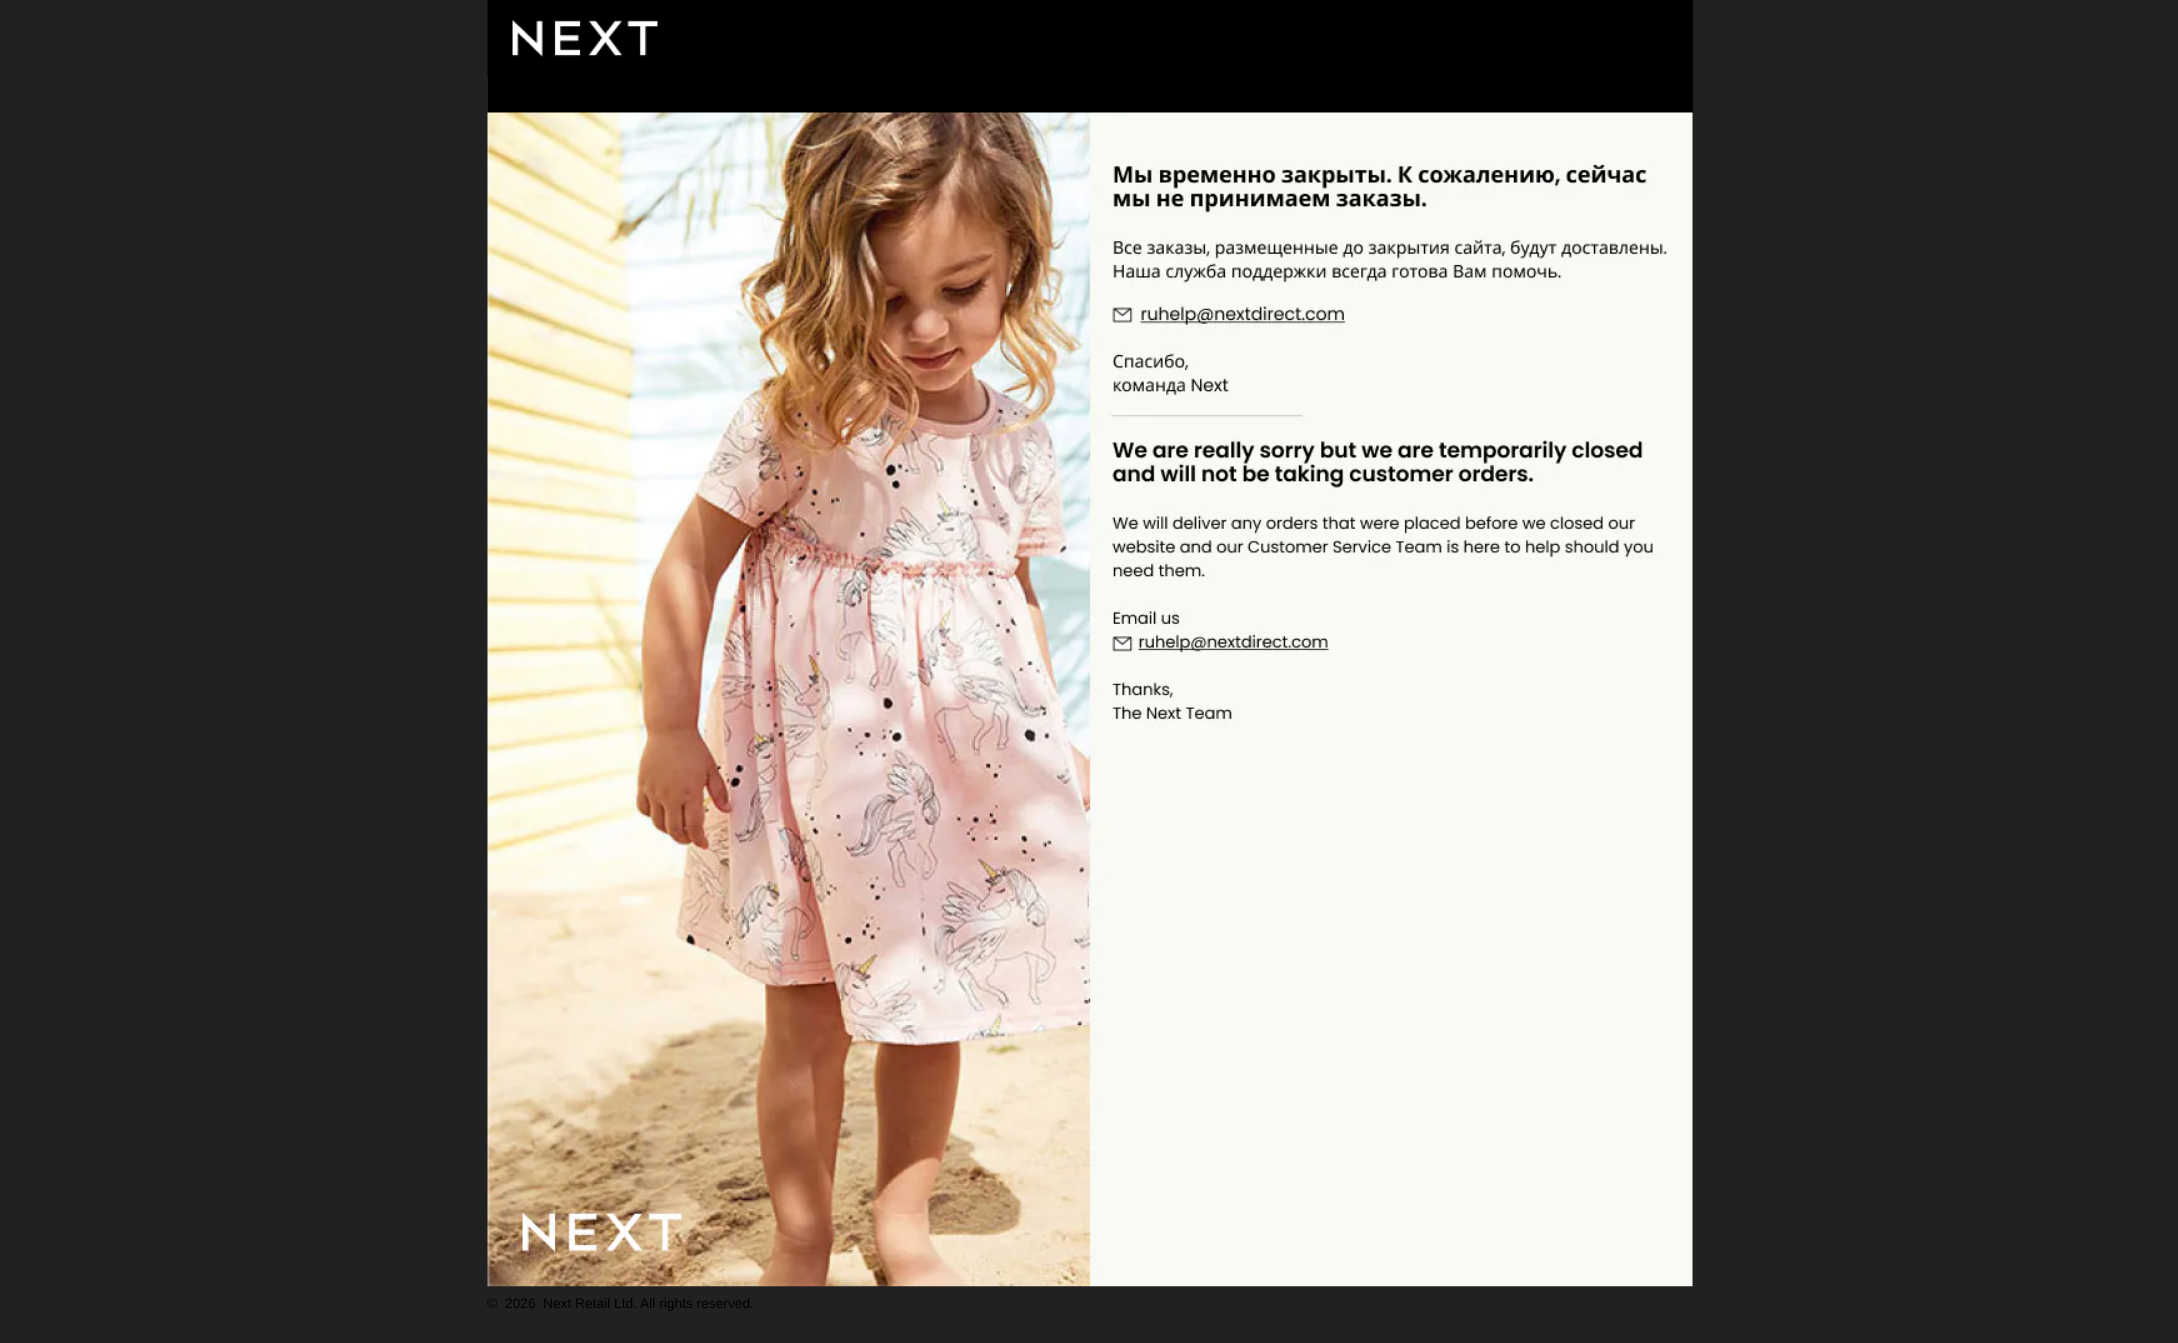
<svg xmlns="http://www.w3.org/2000/svg" width="2178" height="1343" viewBox="0 0 2178 1343">
  <rect width="100%" height="100%" fill="#212121"/>
  <rect x="488" y="0" width="1205" height="113" fill="#000000"/>
  <image x="487" y="0" width="171" height="78" href="img1.png"/>
  <image x="487" y="112" width="1206" height="1175" href="img2.png"/>
  <text x="487" y="1308" font-family="Liberation Sans" font-size="13.75" fill="#000000">©</text>
  <text x="505" y="1308" font-family="Liberation Sans" font-size="13.75" fill="#000000">2026</text>
  <text x="543" y="1308" font-family="Liberation Sans" font-size="13.75" fill="#000000">Next Retail Ltd. All rights reserved.</text>
</svg>
